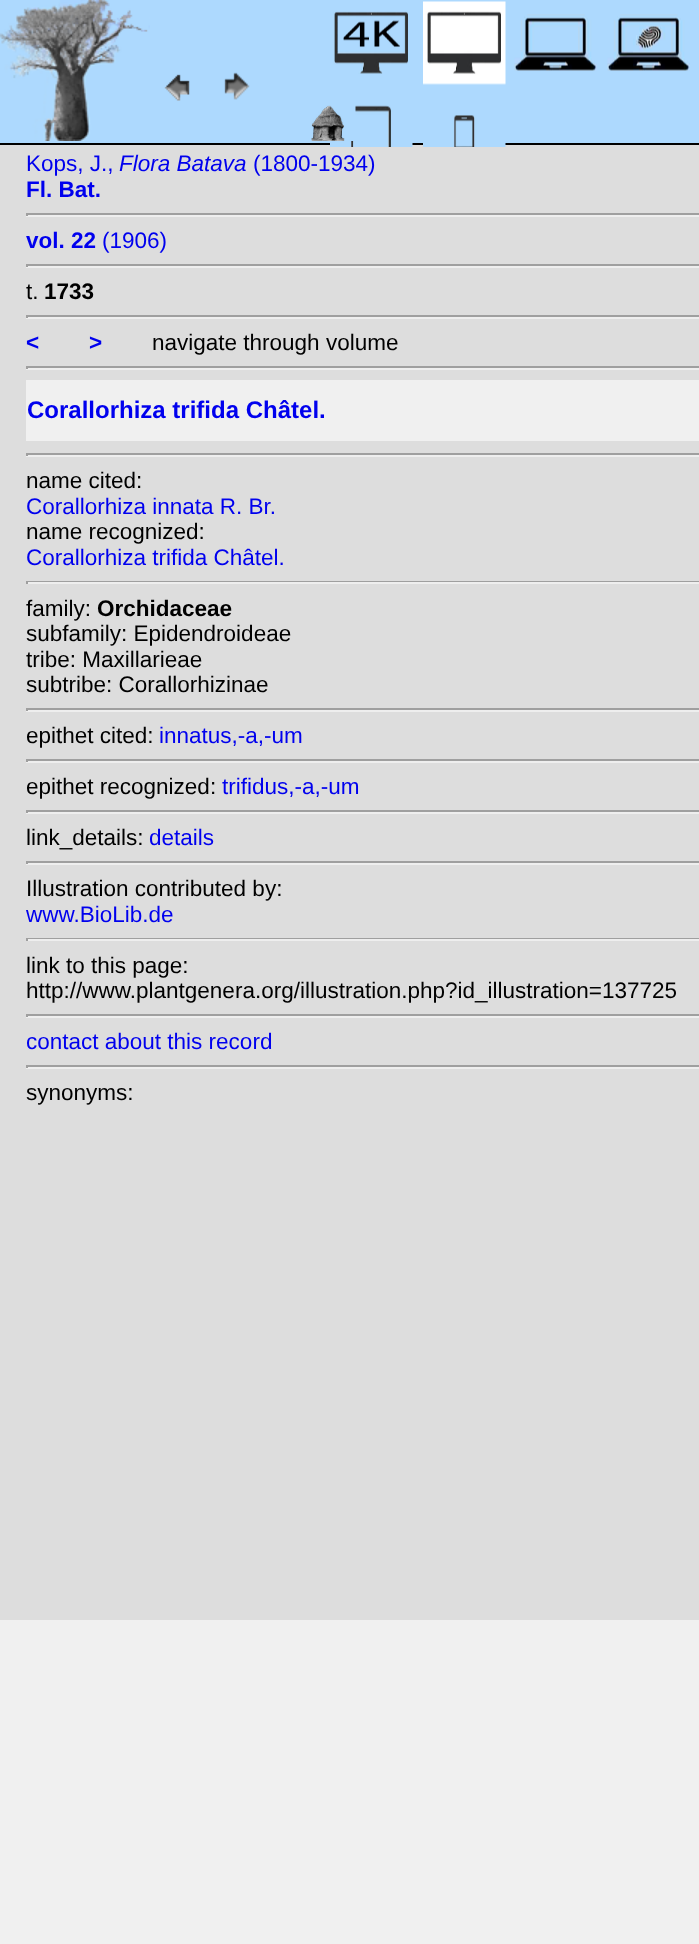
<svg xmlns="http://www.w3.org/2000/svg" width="699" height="1944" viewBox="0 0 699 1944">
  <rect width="100%" height="100%" fill="#f0f0f0"/>
  <rect x="0" y="145" width="699" height="1475" fill="#dddddd"/>
  <rect x="0" y="0" width="699" height="143" fill="#add9fe"/>
  <rect x="0" y="143" width="699" height="2" fill="#000000"/>
  <image x="0" y="0" width="150" height="141" href="img1.png"/>
  <image x="164" y="74" width="26" height="27" href="img2.png"/>
  <image x="224" y="72" width="26" height="28" href="img3.png"/>
  <image x="333" y="11" width="75" height="63" href="img4.png"/>
  <image x="423" y="1" width="83" height="84" href="img5.png"/>
  <image x="514" y="14" width="83" height="57" href="img6.png"/>
  <image x="607" y="14" width="83" height="57" href="img7.png"/>
  <image x="330" y="105" width="83" height="42" href="img8.png"/>
  <image x="423" y="115" width="83" height="32" href="img9.png"/>
  <image x="311" y="105" width="45" height="36" href="img10.png"/>
  <text x="26" y="171" font-family="Liberation Sans" font-size="22.5" fill="#0000ee">Kops, J.,</text>
  <text x="119" y="171" font-family="Liberation Sans" font-size="22.5" font-style="italic" fill="#0000ee">Flora Batava</text>
  <text x="253" y="171" font-family="Liberation Sans" font-size="22.5" fill="#0000ee">(1800-1934)</text>
  <text x="26" y="197" font-family="Liberation Sans" font-size="22.5" font-weight="bold" fill="#0000ee">Fl. Bat.</text>
  <rect x="26" y="213" width="673" height="2" fill="#9f9f9f"/>
  <rect x="26" y="215" width="673" height="2" fill="#eeeeee"/>
  <rect x="26" y="213" width="2" height="3" fill="#9f9f9f"/>
  <text x="26" y="248" font-family="Liberation Sans" font-size="22.5" font-weight="bold" fill="#0000ee">vol. 22</text>
  <text x="102" y="248" font-family="Liberation Sans" font-size="22.5" fill="#0000ee">(1906)</text>
  <rect x="26" y="264" width="673" height="2" fill="#9f9f9f"/>
  <rect x="26" y="266" width="673" height="2" fill="#eeeeee"/>
  <rect x="26" y="264" width="2" height="3" fill="#9f9f9f"/>
  <text x="26" y="299" font-family="Liberation Sans" font-size="22.5" fill="#000000">t.</text>
  <text x="44" y="299" font-family="Liberation Sans" font-size="22.5" font-weight="bold" fill="#000000">1733</text>
  <rect x="26" y="315" width="673" height="2" fill="#9f9f9f"/>
  <rect x="26" y="317" width="673" height="2" fill="#eeeeee"/>
  <rect x="26" y="315" width="2" height="3" fill="#9f9f9f"/>
  <text x="26" y="350" font-family="Liberation Sans" font-size="22.5" font-weight="bold" fill="#0000ee">&lt;</text>
  <text x="89" y="350" font-family="Liberation Sans" font-size="22.5" font-weight="bold" fill="#0000ee">&gt;</text>
  <text x="152" y="350" font-family="Liberation Sans" font-size="22.5" fill="#000000">navigate through volume</text>
  <rect x="26" y="366" width="673" height="2" fill="#9f9f9f"/>
  <rect x="26" y="368" width="673" height="2" fill="#eeeeee"/>
  <rect x="26" y="366" width="2" height="3" fill="#9f9f9f"/>
  <rect x="26" y="380" width="673" height="61" fill="#f0f0f0"/>
  <text x="27" y="418" font-family="Liberation Sans" font-size="24" font-weight="bold" fill="#0000ee">Corallorhiza trifida Châtel.</text>
  <rect x="26" y="453" width="673" height="2" fill="#9f9f9f"/>
  <rect x="26" y="455" width="673" height="2" fill="#eeeeee"/>
  <rect x="26" y="453" width="2" height="3" fill="#9f9f9f"/>
  <text x="26" y="488" font-family="Liberation Sans" font-size="22.5" fill="#000000">name cited:</text>
  <text x="26" y="514" font-family="Liberation Sans" font-size="22.5" fill="#0000ee">Corallorhiza innata R. Br.</text>
  <text x="26" y="539" font-family="Liberation Sans" font-size="22.5" fill="#000000">name recognized:</text>
  <text x="26" y="565" font-family="Liberation Sans" font-size="22.5" fill="#0000ee">Corallorhiza trifida Châtel.</text>
  <rect x="26" y="581" width="673" height="1" fill="#9f9f9f"/>
  <rect x="26" y="582" width="673" height="2" fill="#eeeeee"/>
  <rect x="26" y="581" width="2" height="3" fill="#9f9f9f"/>
  <text x="26" y="616" font-family="Liberation Sans" font-size="22.5" fill="#000000">family:</text>
  <text x="97" y="616" font-family="Liberation Sans" font-size="22.5" font-weight="bold" fill="#000000">Orchidaceae</text>
  <text x="26" y="641" font-family="Liberation Sans" font-size="22.5" fill="#000000">subfamily: Epidendroideae</text>
  <text x="26" y="667" font-family="Liberation Sans" font-size="22.5" fill="#000000">tribe: Maxillarieae</text>
  <text x="26" y="692" font-family="Liberation Sans" font-size="22.5" fill="#000000">subtribe: Corallorhizinae</text>
  <rect x="26" y="708" width="673" height="2" fill="#9f9f9f"/>
  <rect x="26" y="710" width="673" height="2" fill="#eeeeee"/>
  <rect x="26" y="708" width="2" height="3" fill="#9f9f9f"/>
  <text x="26" y="743" font-family="Liberation Sans" font-size="22.5" fill="#000000">epithet cited:</text>
  <text x="159" y="743" font-family="Liberation Sans" font-size="22.5" fill="#0000ee">innatus,-a,-um</text>
  <rect x="26" y="759" width="673" height="2" fill="#9f9f9f"/>
  <rect x="26" y="761" width="673" height="2" fill="#eeeeee"/>
  <rect x="26" y="759" width="2" height="3" fill="#9f9f9f"/>
  <text x="26" y="794" font-family="Liberation Sans" font-size="22.5" fill="#000000">epithet recognized:</text>
  <text x="222" y="794" font-family="Liberation Sans" font-size="22.5" fill="#0000ee">trifidus,-a,-um</text>
  <rect x="26" y="810" width="673" height="2" fill="#9f9f9f"/>
  <rect x="26" y="812" width="673" height="2" fill="#eeeeee"/>
  <rect x="26" y="810" width="2" height="3" fill="#9f9f9f"/>
  <text x="26" y="845" font-family="Liberation Sans" font-size="22.5" fill="#000000">link_details:</text>
  <text x="149" y="845" font-family="Liberation Sans" font-size="22.5" fill="#0000ee">details</text>
  <rect x="26" y="861" width="673" height="2" fill="#9f9f9f"/>
  <rect x="26" y="863" width="673" height="2" fill="#eeeeee"/>
  <rect x="26" y="861" width="2" height="3" fill="#9f9f9f"/>
  <text x="26" y="896" font-family="Liberation Sans" font-size="22.5" fill="#000000">Illustration contributed by:</text>
  <text x="26" y="922" font-family="Liberation Sans" font-size="22.5" fill="#0000ee">www.BioLib.de</text>
  <rect x="26" y="938" width="673" height="1" fill="#9f9f9f"/>
  <rect x="26" y="939" width="673" height="2" fill="#eeeeee"/>
  <rect x="26" y="938" width="2" height="3" fill="#9f9f9f"/>
  <text x="26" y="973" font-family="Liberation Sans" font-size="22.5" fill="#000000">link to this page:</text>
  <text x="26" y="998" font-family="Liberation Sans" font-size="22.5" fill="#000000">http://www.plantgenera.org/illustration.php?id_illustration=137725</text>
  <rect x="26" y="1014" width="673" height="2" fill="#9f9f9f"/>
  <rect x="26" y="1016" width="673" height="2" fill="#eeeeee"/>
  <rect x="26" y="1014" width="2" height="3" fill="#9f9f9f"/>
  <text x="26" y="1049" font-family="Liberation Sans" font-size="22.5" fill="#0000ee">contact about this record</text>
  <rect x="26" y="1065" width="673" height="2" fill="#9f9f9f"/>
  <rect x="26" y="1067" width="673" height="2" fill="#eeeeee"/>
  <rect x="26" y="1065" width="2" height="3" fill="#9f9f9f"/>
  <text x="26" y="1100" font-family="Liberation Sans" font-size="22.5" fill="#000000">synonyms:</text>
</svg>
